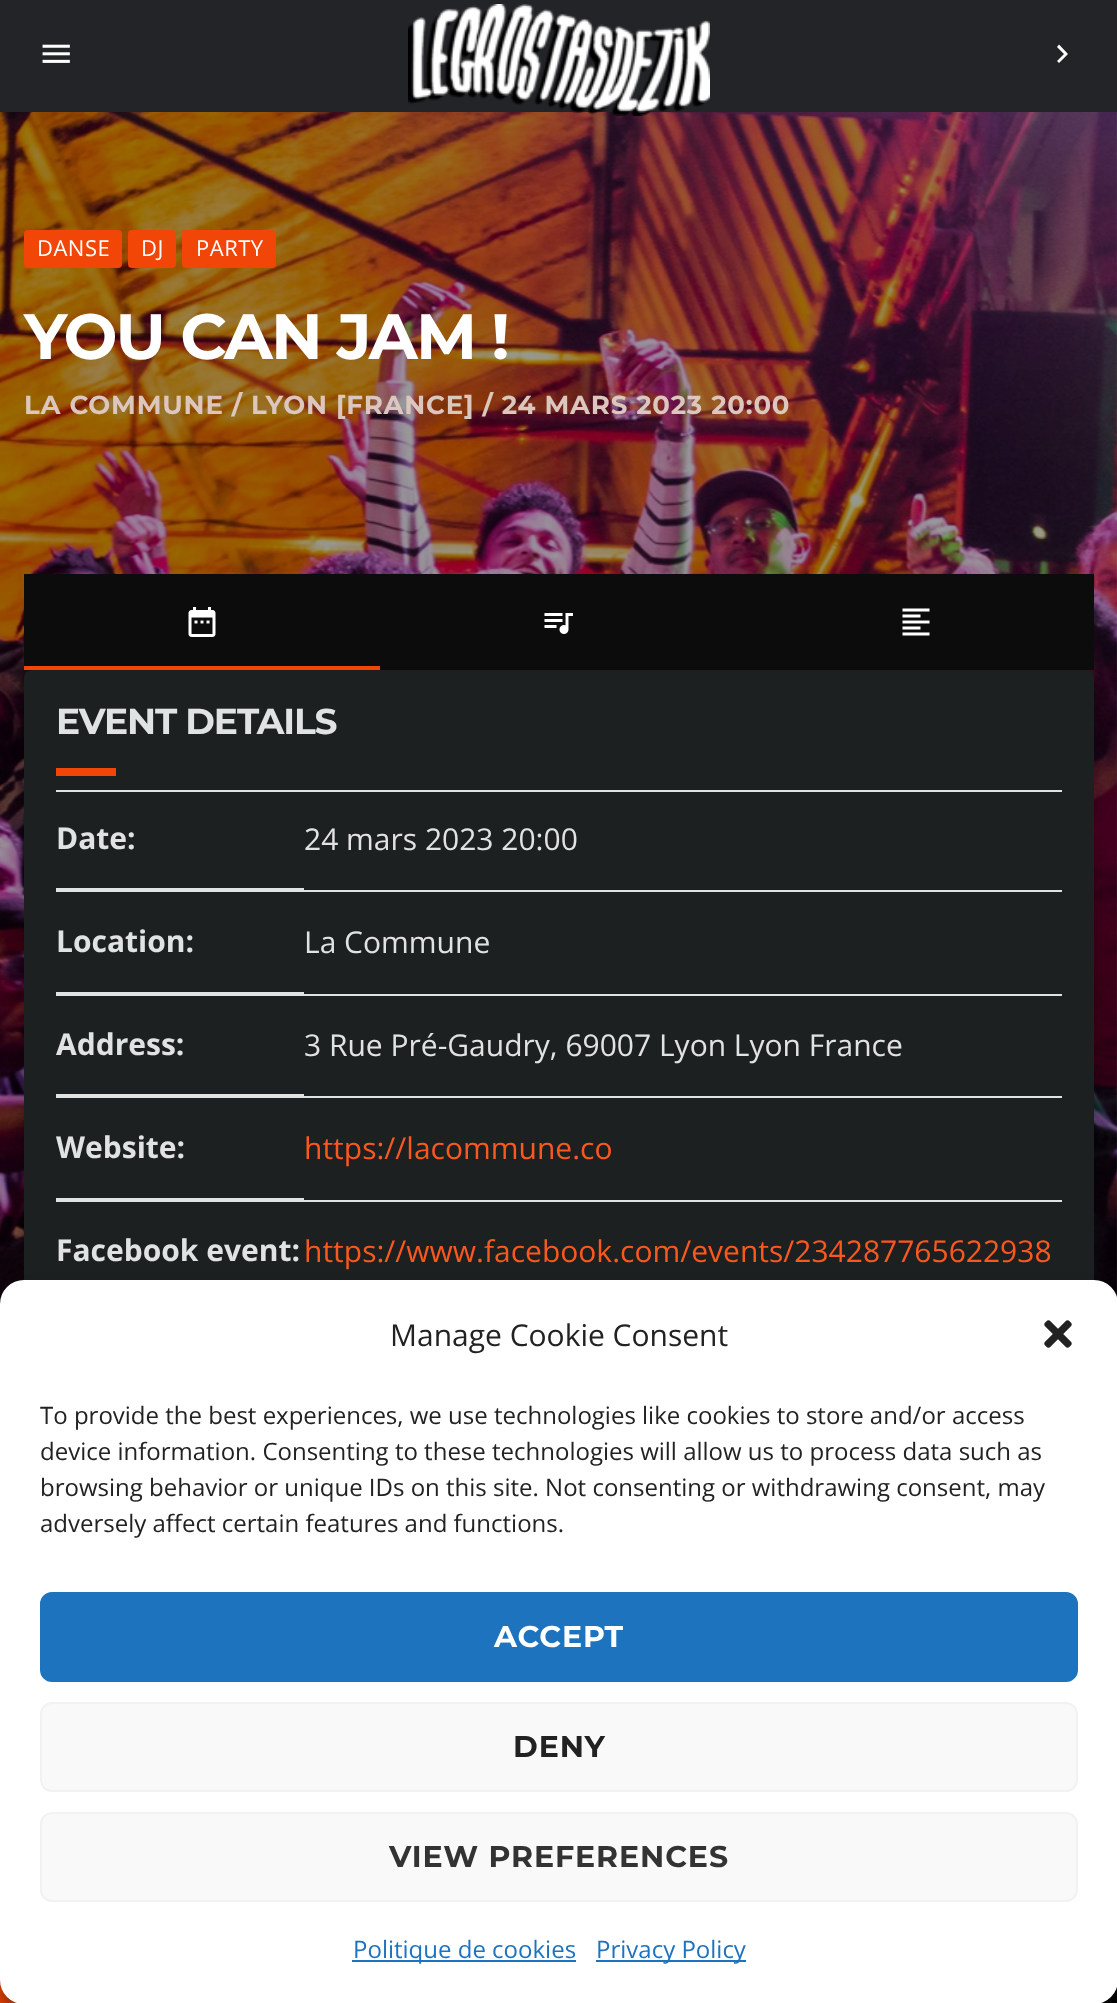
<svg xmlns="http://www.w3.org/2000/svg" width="1117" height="2003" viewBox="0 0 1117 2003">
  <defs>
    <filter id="blur1" x="-50%" y="-200%" width="200%" height="500%"><feGaussianBlur stdDeviation="12"/></filter>
    <filter id="blur2" x="-50%" y="-200%" width="200%" height="500%"><feGaussianBlur stdDeviation="6"/></filter>
    <filter id="blur3" x="-50%" y="-200%" width="200%" height="500%"><feGaussianBlur stdDeviation="20"/></filter>
  </defs>
  <rect width="100%" height="100%" fill="#ffffff"/>
  <rect x="0" y="0" width="1117" height="112" fill="#232428"/>
  <image x="42" y="44" width="28" height="19" href="img1.png"/>
  <image x="0" y="112" width="1117" height="1192" href="img3.png"/>
  <image x="408" y="4" width="302" height="112" href="img2.png"/>
  <path d="M1059 44.5L1068 54L1059 63L1057 61L1064 54L1057 47Z" fill="#ffffff"/>
  <rect x="24" y="230" width="98" height="38" rx="4" fill="#f14608"/>
  <text x="37" y="256" font-family="Open Sans" font-size="22" letter-spacing="0.5" fill="#ffffff">DANSE</text>
  <rect x="128" y="230" width="48" height="38" rx="4" fill="#f14608"/>
  <text x="141" y="256" font-family="Open Sans" font-size="22" letter-spacing="0.5" fill="#ffffff">DJ</text>
  <rect x="182" y="230" width="94" height="38" rx="4" fill="#f14608"/>
  <text x="196" y="256" font-family="Open Sans" font-size="22" letter-spacing="0.5" fill="#ffffff">PARTY</text>
  <text x="24" y="359" font-family="Montserrat" font-size="64" font-weight="bold" letter-spacing="-1.9" fill="#ffffff">YOU CAN JAM !</text>
  <text x="24" y="414" font-family="Montserrat" font-size="26" font-weight="bold" letter-spacing="0.8" fill="#dbc7bd">LA COMMUNE / LYON [FRANCE] / 24 MARS 2023 20:00</text>
  <rect x="24" y="674" width="1070" height="668" rx="8" fill="#000000" fill-opacity="0.3" filter="url(#blur1)"/>
  <rect x="24" y="574" width="1070" height="96" fill="#0c0c0c"/>
  <image x="188" y="607" width="28" height="30" href="img4.png"/>
  <image x="544" y="613" width="29" height="21" href="img5.png"/>
  <image x="902" y="608" width="28" height="28" href="img6.png"/>
  <rect x="24" y="666" width="356" height="4" fill="#f14608"/>
  <rect x="24" y="670" width="1070" height="668" rx="8" fill="#1c2020"/>
  <text x="56" y="734" font-family="Montserrat" font-size="36" font-weight="bold" letter-spacing="-1.1" fill="#e1e2e2">EVENT DETAILS</text>
  <rect x="56" y="768" width="60" height="8" fill="#f14608"/>
  <rect x="56" y="790" width="1006" height="2" fill="#e1e2e2"/>
  <rect x="56" y="888" width="248" height="4" fill="#e1e2e2"/>
  <text x="56" y="849" font-family="Open Sans" font-size="30" font-weight="bold" fill="#e1e2e2">Date:</text>
  <rect x="304" y="890" width="758" height="2" fill="#e1e2e2"/>
  <text x="304" y="850" font-family="Open Sans" font-size="30" fill="#e1e2e2">24 mars 2023 20:00</text>
  <rect x="56" y="992" width="248" height="4" fill="#e1e2e2"/>
  <text x="56" y="952" font-family="Open Sans" font-size="30" font-weight="bold" fill="#e1e2e2">Location:</text>
  <rect x="304" y="994" width="758" height="2" fill="#e1e2e2"/>
  <text x="304" y="953" font-family="Open Sans" font-size="30" fill="#e1e2e2">La Commune</text>
  <rect x="56" y="1094" width="248" height="4" fill="#e1e2e2"/>
  <text x="56" y="1055" font-family="Open Sans" font-size="30" font-weight="bold" fill="#e1e2e2">Address:</text>
  <rect x="304" y="1096" width="758" height="2" fill="#e1e2e2"/>
  <text x="304" y="1056" font-family="Open Sans" font-size="30" fill="#e1e2e2">3 Rue Pré-Gaudry, 69007 Lyon Lyon France</text>
  <rect x="56" y="1198" width="248" height="4" fill="#e1e2e2"/>
  <text x="56" y="1158" font-family="Open Sans" font-size="30" font-weight="bold" fill="#e1e2e2">Website:</text>
  <rect x="304" y="1200" width="758" height="2" fill="#e1e2e2"/>
  <text x="304" y="1159" font-family="Open Sans" font-size="30" fill="#fa581e">https://lacommune.co</text>
  <text x="56" y="1261" font-family="Open Sans" font-size="30" font-weight="bold" fill="#e1e2e2">Facebook event:</text>
  <text x="304" y="1262" font-family="Open Sans" font-size="30" fill="#fa581e">https://www.facebook.com/events/234287765622938</text>
  <rect x="1101" y="1987" width="16" height="16" fill="#000000"/>
  <rect x="0" y="1980" width="17" height="23" fill="#f14608"/>
  <rect x="0" y="1292" width="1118" height="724" rx="24" fill="#000000" fill-opacity="0.23" filter="url(#blur2)"/>
  <rect x="0" y="1300" width="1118" height="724" rx="24" fill="#000000" fill-opacity="0.19" filter="url(#blur3)"/>
  <rect x="0" y="1280" width="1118" height="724" rx="24" fill="#ffffff"/>
  <text x="390" y="1346" font-family="Open Sans" font-size="30" fill="#222222">Manage Cookie Consent</text>
  <image x="1044" y="1320" width="28" height="28" href="img7.png"/>
  <text x="40" y="1424" font-family="Open Sans" font-size="24" fill="#222222">To provide the best experiences, we use technologies like cookies to store and/or access</text>
  <text x="40" y="1460" font-family="Open Sans" font-size="24" fill="#222222">device information. Consenting to these technologies will allow us to process data such as</text>
  <text x="40" y="1496" font-family="Open Sans" font-size="24" fill="#222222">browsing behavior or unique IDs on this site. Not consenting or withdrawing consent, may</text>
  <text x="40" y="1532" font-family="Open Sans" font-size="24" fill="#222222">adversely affect certain features and functions.</text>
  <rect x="41" y="1593" width="1036" height="88" rx="11" fill="#1e73be" stroke="#1e73be" stroke-width="2"/>
  <text x="494" y="1647" font-family="Montserrat" font-size="30" font-weight="bold" letter-spacing="0.9" fill="#ffffff">ACCEPT</text>
  <rect x="41" y="1703" width="1036" height="88" rx="11" fill="#f9f9f9" stroke="#f2f2f2" stroke-width="2"/>
  <text x="513" y="1757" font-family="Montserrat" font-size="30" font-weight="bold" letter-spacing="0.9" fill="#222222">DENY</text>
  <rect x="41" y="1813" width="1036" height="88" rx="11" fill="#f9f9f9" stroke="#f2f2f2" stroke-width="2"/>
  <text x="389" y="1867" font-family="Montserrat" font-size="30" font-weight="bold" letter-spacing="0.9" fill="#333333">VIEW PREFERENCES</text>
  <rect x="352" y="1960" width="224" height="2" fill="#1e73be"/>
  <text x="353" y="1958" font-family="Open Sans" font-size="24" fill="#1e73be">Politique de cookies</text>
  <rect x="596" y="1960" width="150" height="2" fill="#1e73be"/>
  <text x="596" y="1958" font-family="Open Sans" font-size="24" fill="#1e73be">Privacy Policy</text>
</svg>
